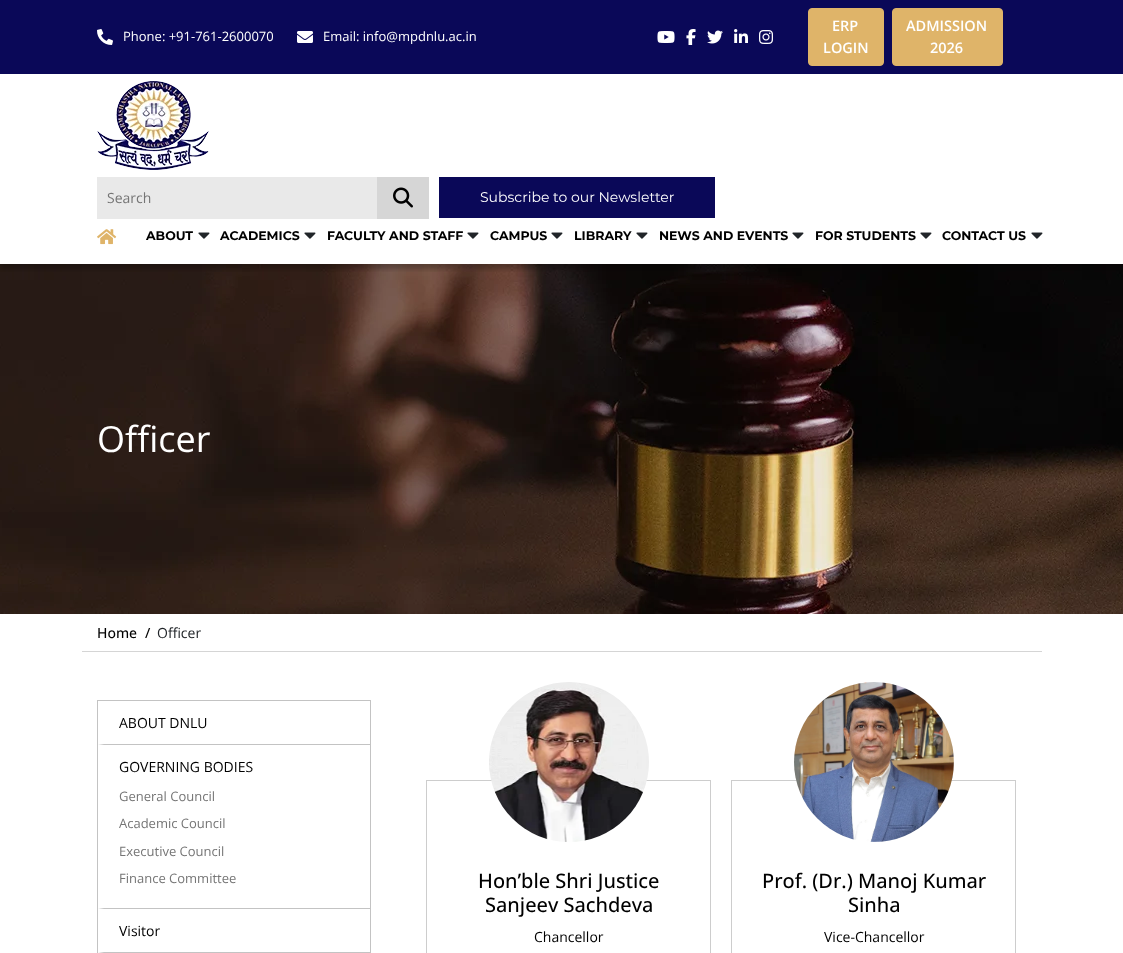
<svg xmlns="http://www.w3.org/2000/svg" width="1123" height="953" viewBox="0 0 1123 953">
  <defs>
    <clipPath id="clip1"><rect x="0" y="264" width="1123" height="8"/></clipPath>
    <filter id="blur1" x="-50%" y="-200%" width="200%" height="500%"><feGaussianBlur stdDeviation="2.5"/></filter>
  </defs>
  <rect width="100%" height="100%" fill="#ffffff"/>
  <rect x="0" y="0" width="1123" height="74" fill="#0a0858"/>
  <image x="97" y="29" width="16" height="16" href="img1.png"/>
  <text x="123" y="41" font-family="Open Sans" font-size="13" fill="#ffffff">Phone: +91-761-2600070</text>
  <image x="297" y="31" width="16" height="12" href="img2.png"/>
  <text x="323" y="41" font-family="Open Sans" font-size="13" fill="#ffffff">Email: info@mpdnlu.ac.in</text>
  <image x="657" y="31" width="18" height="12" href="img3.png"/>
  <image x="686" y="29" width="10" height="16" href="img4.png"/>
  <image x="707" y="30" width="16" height="14" href="img5.png"/>
  <image x="734" y="29" width="14" height="14" href="img6.png"/>
  <image x="759" y="30" width="14" height="14" href="img7.png"/>
  <rect x="808.5" y="8.5" width="75" height="57" rx="3.5" fill="#dfb469" stroke="#dfb469"/>
  <text x="832" y="31" font-family="Open Sans" font-size="14.5" font-weight="600" fill="#ffffff">ERP</text>
  <text x="823" y="53" font-family="Open Sans" font-size="14.5" font-weight="600" fill="#ffffff">LOGIN</text>
  <rect x="892.5" y="8.5" width="110" height="57" rx="3.5" fill="#dfb469" stroke="#dfb469"/>
  <text x="906" y="31" font-family="Open Sans" font-size="14.5" font-weight="600" fill="#ffffff">ADMISSION</text>
  <text x="930" y="53" font-family="Open Sans" font-size="14.5" font-weight="600" fill="#ffffff">2026</text>
  <image x="97" y="81" width="112" height="89" href="img8.png"/>
  <image x="0" y="264" width="1123" height="350" href="img12.png"/>
  <g clip-path="url(#clip1)">
    <rect x="0" y="224" width="1123" height="45" fill="#000000" fill-opacity="0.25" filter="url(#blur1)"/>
  </g>
  <rect x="97" y="177" width="280" height="42" fill="#e9e9e9"/>
  <text x="107" y="203" font-family="Open Sans" font-size="14" fill="#757575">Search</text>
  <rect x="377" y="177" width="52" height="42" fill="#d6d6d6"/>
  <image x="393" y="187" width="20" height="21" href="img9.png"/>
  <rect x="439" y="177" width="276" height="41" fill="#0a0858"/>
  <text x="480" y="202" font-family="Montserrat" font-size="14" fill="#ffffff">Subscribe to our Newsletter</text>
  <image x="97" y="229" width="20" height="16" href="img10.png"/>
  <text x="146" y="240" font-family="Montserrat" font-size="12.5" font-weight="bold" fill="#000000">ABOUT</text>
  <image x="198" y="232" width="12" height="7" href="img11.png"/>
  <text x="220" y="240" font-family="Montserrat" font-size="12.5" font-weight="bold" fill="#000000">ACADEMICS</text>
  <image x="304" y="232" width="12" height="7" href="img11.png"/>
  <text x="327" y="240" font-family="Montserrat" font-size="12.5" font-weight="bold" fill="#000000">FACULTY AND STAFF</text>
  <image x="467" y="232" width="12" height="7" href="img11.png"/>
  <text x="490" y="240" font-family="Montserrat" font-size="12.5" font-weight="bold" fill="#000000">CAMPUS</text>
  <image x="551" y="232" width="12" height="7" href="img11.png"/>
  <text x="574" y="240" font-family="Montserrat" font-size="12.5" font-weight="bold" fill="#000000">LIBRARY</text>
  <image x="636" y="232" width="12" height="7" href="img11.png"/>
  <text x="659" y="240" font-family="Montserrat" font-size="12.5" font-weight="bold" fill="#000000">NEWS AND EVENTS</text>
  <image x="792" y="232" width="12" height="7" href="img11.png"/>
  <text x="815" y="240" font-family="Montserrat" font-size="12.5" font-weight="bold" fill="#000000">FOR STUDENTS</text>
  <image x="920" y="232" width="12" height="7" href="img11.png"/>
  <text x="942" y="240" font-family="Montserrat" font-size="12.5" font-weight="bold" fill="#000000">CONTACT US</text>
  <image x="1031" y="232" width="12" height="7" href="img11.png"/>
  <text x="97" y="452" font-family="Open Sans" font-size="36" fill="#ffffff">Officer</text>
  <rect x="82" y="651" width="960" height="1" fill="#d5d5d5"/>
  <text x="97" y="638" font-family="Open Sans" font-size="14" font-weight="500" fill="#000000">Home</text>
  <text x="145" y="638" font-family="Open Sans" font-size="14" font-weight="500" fill="#000000">/</text>
  <text x="157" y="638" font-family="Open Sans" font-size="14" fill="#212529">Officer</text>
  <rect x="97.5" y="700.5" width="273" height="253" fill="none" stroke="#c3c3c3"/>
  <path d="M370 745H98L104 744H370Z" fill="#c3c3c3"/>
  <text x="119" y="728" font-family="Open Sans" font-size="14" fill="#000000">ABOUT DNLU</text>
  <path d="M370 909H98L104 908H370Z" fill="#c3c3c3"/>
  <text x="119" y="772" font-family="Open Sans" font-size="14" fill="#000000">GOVERNING BODIES</text>
  <text x="119" y="801" font-family="Open Sans" font-size="13" fill="#757575">General Council</text>
  <text x="119" y="828" font-family="Open Sans" font-size="13" fill="#757575">Academic Council</text>
  <text x="119" y="856" font-family="Open Sans" font-size="13" fill="#757575">Executive Council</text>
  <text x="119" y="883" font-family="Open Sans" font-size="13" fill="#757575">Finance Committee</text>
  <path d="M370 953H98L104 952H370Z" fill="#c3c3c3"/>
  <text x="119" y="936" font-family="Open Sans" font-size="14" fill="#000000">Visitor</text>
  <rect x="426.5" y="780.5" width="284" height="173" fill="none" stroke="#cdcdcd"/>
  <image x="489" y="682" width="160" height="160" href="img13.png"/>
  <text x="478" y="888" font-family="Open Sans" font-size="20" font-weight="500" fill="#000000">Hon’ble Shri Justice</text>
  <text x="485" y="912" font-family="Open Sans" font-size="20" font-weight="500" fill="#000000">Sanjeev Sachdeva</text>
  <text x="534" y="942" font-family="Open Sans" font-size="14" fill="#000000">Chancellor</text>
  <rect x="731.5" y="780.5" width="284" height="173" fill="none" stroke="#cdcdcd"/>
  <image x="794" y="682" width="160" height="160" href="img14.png"/>
  <text x="762" y="888" font-family="Open Sans" font-size="20" font-weight="500" fill="#000000">Prof. (Dr.) Manoj Kumar</text>
  <text x="848" y="912" font-family="Open Sans" font-size="20" font-weight="500" fill="#000000">Sinha</text>
  <text x="824" y="942" font-family="Open Sans" font-size="14" fill="#000000">Vice-Chancellor</text>
</svg>
